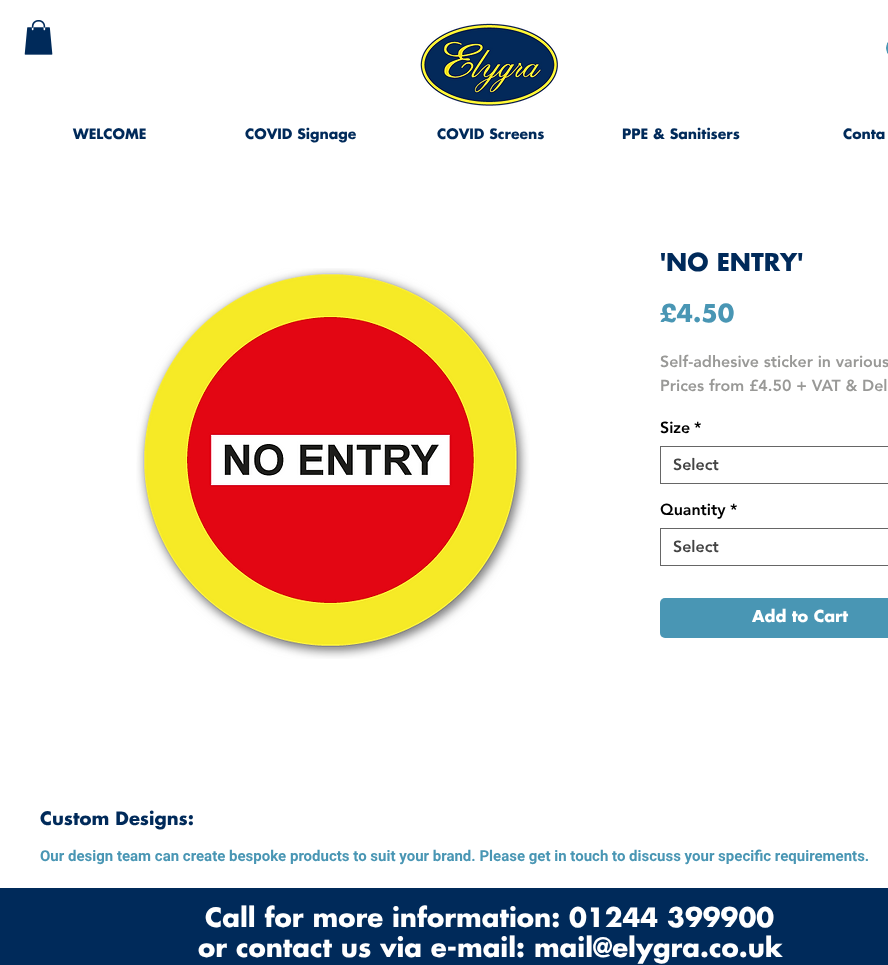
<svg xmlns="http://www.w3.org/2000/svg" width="888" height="965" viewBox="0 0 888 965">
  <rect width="100%" height="100%" fill="#ffffff"/>
  <image x="24" y="20" width="29" height="35" href="img1.png"/>
  <image x="420" y="23" width="138" height="83" href="img2.png"/>
  <image x="886" y="42" width="2" height="12" href="img3.png"/>
  <text x="73" y="139" font-family="Futura" font-size="14" font-weight="bold" fill="#002a5a">WELCOME</text>
  <text x="245" y="139" font-family="Futura" font-size="14" font-weight="bold" fill="#002a5a">COVID Signage</text>
  <text x="437" y="139" font-family="Futura" font-size="14" font-weight="bold" fill="#002a5a">COVID Screens</text>
  <text x="622" y="139" font-family="Futura" font-size="14" font-weight="bold" fill="#002a5a">PPE &amp; Sanitisers</text>
  <text x="843" y="139" font-family="Futura" font-size="14" font-weight="bold" fill="#002a5a">Conta</text>
  <image x="136" y="268" width="394" height="391" href="img4.png"/>
  <text x="660" y="271" font-family="Futura" font-size="24" font-weight="bold" fill="#002a5a">'NO ENTRY'</text>
  <text x="660" y="322" font-family="Futura" font-size="24" font-weight="bold" fill="#4996b4">£4.50</text>
  <text x="660" y="367" font-family="'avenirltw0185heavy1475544'" font-size="16" font-weight="900" fill="#999997">Self-adhesive sticker in various</text>
  <text x="660" y="391" font-family="'avenirltw0185heavy1475544'" font-size="16" font-weight="900" fill="#999997">Prices from £4.50 + VAT &amp; Del</text>
  <text x="660" y="433" font-family="'avenirltw0185heavy1475544'" font-size="16" font-weight="900" fill="#000000">Size</text>
  <text x="694" y="433" font-family="'avenirltw0185heavy1475544'" font-size="16" font-weight="900" fill="#000000">*</text>
  <rect x="660.5" y="446.5" width="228" height="37" fill="none" stroke="#666666"/>
  <text x="673" y="470" font-family="'avenirltw0185heavy1475544'" font-size="16" font-weight="900" fill="#444444">Select</text>
  <text x="660" y="515" font-family="'avenirltw0185heavy1475544'" font-size="16" font-weight="900" fill="#000000">Quantity</text>
  <text x="730" y="515" font-family="'avenirltw0185heavy1475544'" font-size="16" font-weight="900" fill="#000000">*</text>
  <rect x="660.5" y="528.5" width="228" height="37" fill="none" stroke="#666666"/>
  <text x="673" y="552" font-family="'avenirltw0185heavy1475544'" font-size="16" font-weight="900" fill="#444444">Select</text>
  <rect x="660" y="598" width="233" height="40" rx="5" fill="#4996b4"/>
  <text x="752" y="622" font-family="Futura" font-size="16" font-weight="bold" fill="#ffffff">Add to Cart</text>
  <text x="40" y="825" font-family="Futura" font-size="18" font-weight="bold" fill="#002a5a">Custom Designs:</text>
  <text x="40" y="861" font-family="Roboto" font-size="15" font-weight="bold" fill="#4996b4">Our design team can create bespoke products to suit your brand. Please get in touch to discuss your specific requirements.</text>
  <rect x="0" y="888" width="888" height="77" fill="#002a5a"/>
  <text x="205" y="927" font-family="Futura" font-size="26" font-weight="bold" fill="#ffffff">Call for more information: 01244 399900</text>
  <text x="198" y="957" font-family="Futura" font-size="26" font-weight="bold" fill="#ffffff">or contact us via e-mail: mail@elygra.co.uk</text>
</svg>
